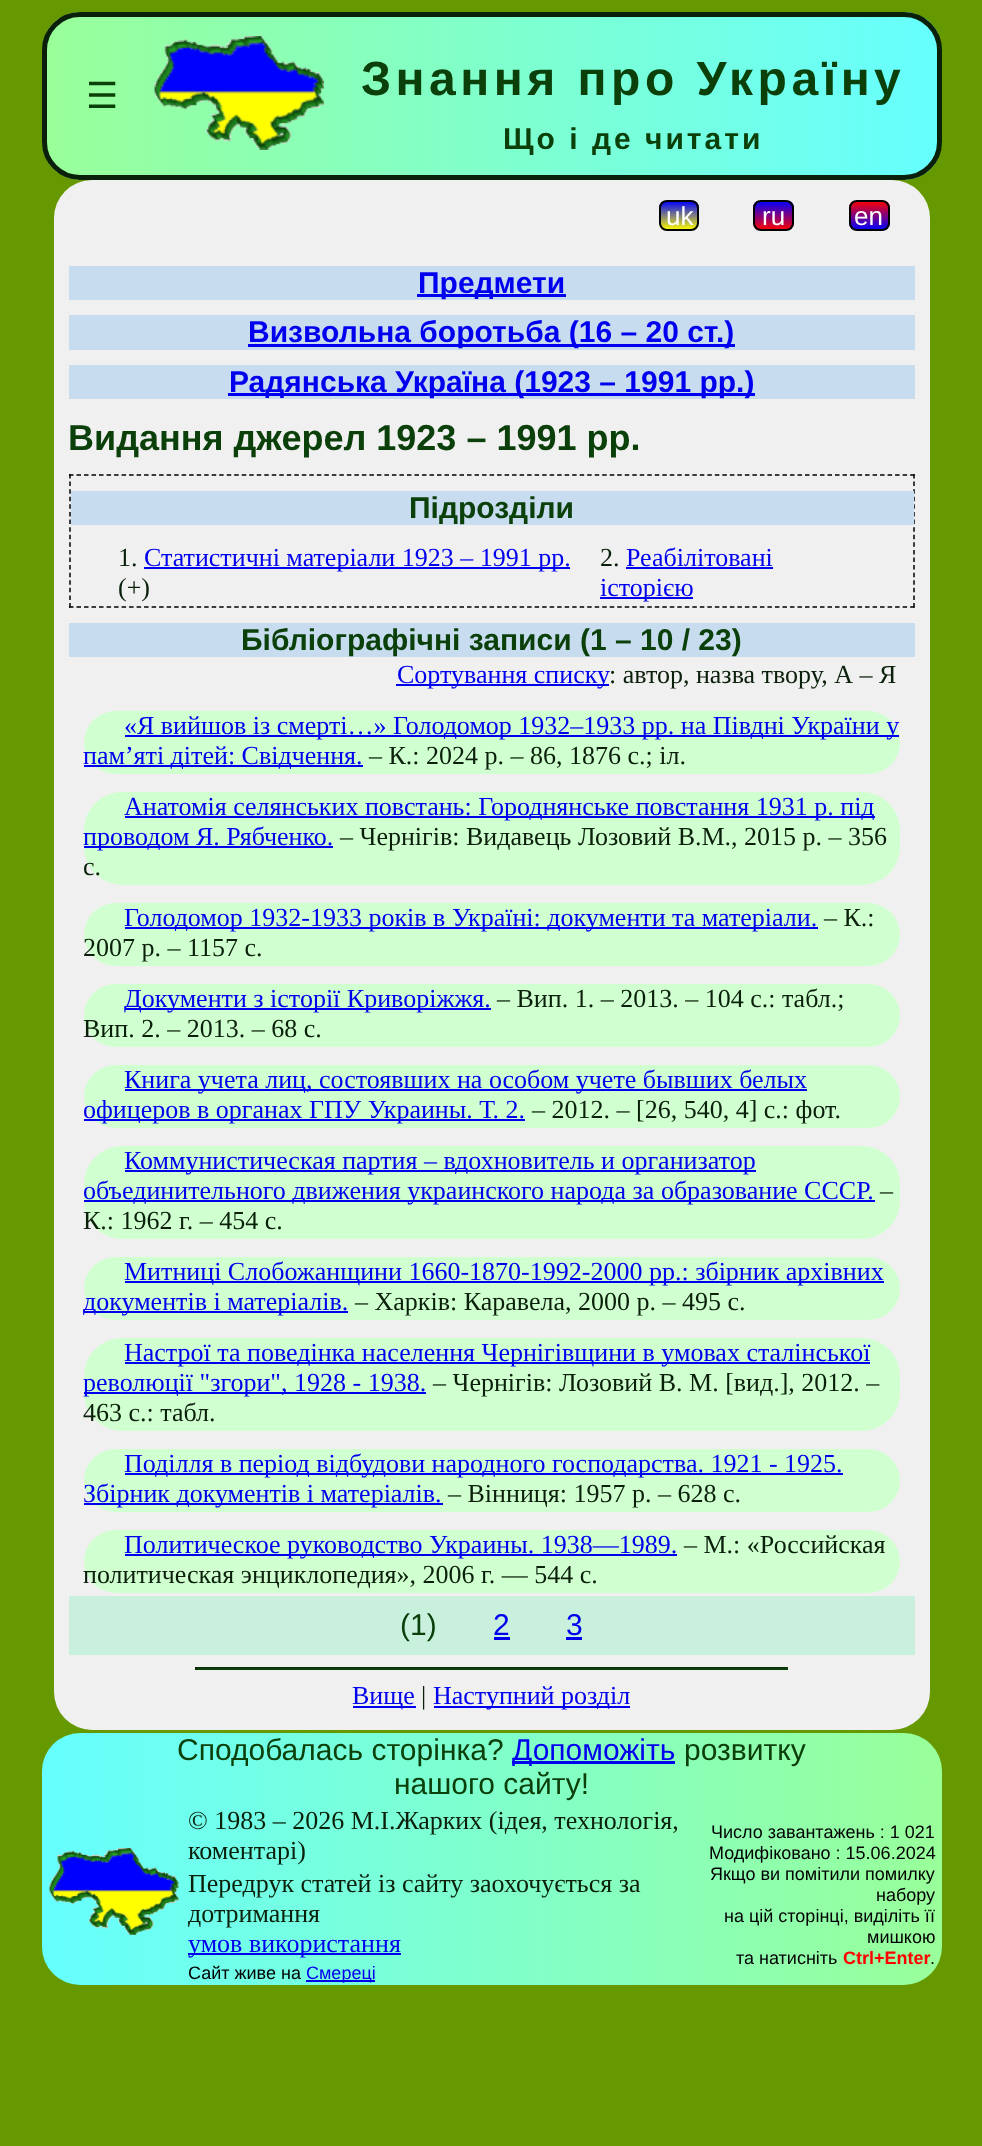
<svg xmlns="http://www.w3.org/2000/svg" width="982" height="2146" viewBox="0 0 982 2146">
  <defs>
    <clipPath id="clip1"><rect x="42" y="12" width="900" height="168" rx="38"/></clipPath>
    <linearGradient id="g1" gradientUnits="userSpaceOnUse" x1="47" y1="96" x2="938" y2="96"><stop offset="0" stop-color="#99ff99"/><stop offset="1" stop-color="#66ffff"/></linearGradient>
    <clipPath id="clip2"><rect x="659" y="200" width="40" height="31" rx="8"/></clipPath>
    <linearGradient id="g2" gradientUnits="userSpaceOnUse" x1="679" y1="201" x2="679" y2="230"><stop offset="0" stop-color="#0000ff"/><stop offset="1" stop-color="#ffff00"/></linearGradient>
    <clipPath id="clip3"><rect x="753" y="200" width="41" height="31" rx="8"/></clipPath>
    <linearGradient id="g3" gradientUnits="userSpaceOnUse" x1="773" y1="201" x2="773" y2="230"><stop offset="0" stop-color="#0000ff"/><stop offset="1" stop-color="#ff0000"/></linearGradient>
    <clipPath id="clip4"><rect x="849" y="200" width="41" height="31" rx="8"/></clipPath>
    <linearGradient id="g4" gradientUnits="userSpaceOnUse" x1="869" y1="201" x2="869" y2="230"><stop offset="0" stop-color="#ff0000"/><stop offset="1" stop-color="#0000ff"/></linearGradient>
    <linearGradient id="g5" gradientUnits="userSpaceOnUse" x1="42" y1="1859" x2="942" y2="1859"><stop offset="0" stop-color="#66ffff"/><stop offset="1" stop-color="#99ff99"/></linearGradient>
  </defs>
  <rect width="100%" height="100%" fill="#669900"/>
  <g clip-path="url(#clip1)">
    <rect x="47" y="12" width="891" height="168" fill="url(#g1)"/>
  </g>
  <rect x="44.5" y="14.5" width="895" height="163" rx="35.5" fill="none" stroke="#0b200b" stroke-width="5"/>
  <text x="86" y="108" font-family="DejaVu Sans" font-size="36" fill="#0b400b">☰</text>
  <image x="154" y="36" width="170" height="114" href="img1.png"/>
  <text x="361" y="95" font-family="Liberation Sans" font-size="48" font-weight="bold" letter-spacing="4.5" fill="#0b400b">Знання про Україну</text>
  <text x="503" y="149" font-family="Liberation Sans" font-size="30" font-weight="bold" letter-spacing="3" fill="#0b400b">Що і де читати</text>
  <rect x="54" y="180" width="876" height="1550" rx="38" fill="#f0f0f0"/>
  <g clip-path="url(#clip2)">
    <rect x="659" y="201" width="40" height="29" fill="url(#g2)"/>
  </g>
  <rect x="660" y="201" width="38" height="29" rx="7" fill="none" stroke="#000000" stroke-width="2"/>
  <text x="666" y="225" font-family="Liberation Sans" font-size="26" fill="#ffffff">uk</text>
  <g clip-path="url(#clip3)">
    <rect x="753" y="201" width="41" height="29" fill="url(#g3)"/>
  </g>
  <rect x="754" y="201" width="39" height="29" rx="7" fill="none" stroke="#000000" stroke-width="2"/>
  <text x="762" y="225" font-family="Liberation Sans" font-size="26" fill="#ffffff">ru</text>
  <g clip-path="url(#clip4)">
    <rect x="849" y="201" width="41" height="29" fill="url(#g4)"/>
  </g>
  <rect x="850" y="201" width="39" height="29" rx="7" fill="none" stroke="#000000" stroke-width="2"/>
  <text x="854" y="225" font-family="Liberation Sans" font-size="26" fill="#ffffff">en</text>
  <rect x="69" y="266" width="846" height="34" fill="#c8dcf0"/>
  <rect x="417" y="294" width="149" height="3" fill="#0000ee"/>
  <text x="418" y="293" font-family="Liberation Sans" font-size="30" font-weight="bold" fill="#0000ee">Предмети</text>
  <rect x="69" y="315" width="846" height="35" fill="#c8dcf0"/>
  <rect x="248" y="344" width="487" height="3" fill="#0000ee"/>
  <text x="248" y="342" font-family="Liberation Sans" font-size="30" font-weight="bold" fill="#0000ee">Визвольна боротьба (16 – 20 ст.)</text>
  <rect x="69" y="365" width="846" height="34" fill="#c8dcf0"/>
  <rect x="228" y="393" width="527" height="3" fill="#0000ee"/>
  <text x="229" y="392" font-family="Liberation Sans" font-size="30" font-weight="bold" fill="#0000ee">Радянська Україна (1923 – 1991 рр.)</text>
  <text x="68" y="450" font-family="Liberation Sans" font-size="36" font-weight="bold" fill="#0b400b">Видання джерел 1923 – 1991 рр.</text>
  <path d="M69 475H915" fill="none" stroke="#000000" stroke-width="1.5" stroke-dasharray="4.5 3.01"/>
  <path d="M914 474V607.5" fill="none" stroke="#000000" stroke-width="1.5" stroke-dasharray="4.5 3.09"/>
  <path d="M69 607H915" fill="none" stroke="#000000" stroke-width="1.5" stroke-dasharray="4.5 3.01"/>
  <path d="M70 474V607.5" fill="none" stroke="#000000" stroke-width="1.5" stroke-dasharray="4.5 3.09"/>
  <rect x="71" y="491" width="843" height="34" fill="#c8dcf0"/>
  <text x="409" y="518" font-family="Liberation Sans" font-size="30" font-weight="bold" fill="#0b400b">Підрозділи</text>
  <text x="118" y="566" font-family="Liberation Serif" font-size="26" fill="#0b200b">1.</text>
  <rect x="144" y="567" width="426" height="2" fill="#0000ee"/>
  <text x="144" y="566" font-family="Liberation Serif" font-size="26" fill="#0000ee">Статистичні матеріали 1923 – 1991 рр.</text>
  <text x="118" y="596" font-family="Liberation Serif" font-size="26" fill="#0b200b">(+)</text>
  <text x="600" y="566" font-family="Liberation Serif" font-size="26" fill="#0b200b">2.</text>
  <text x="626" y="566" font-family="Liberation Serif" font-size="26" fill="#0000ee">Реабілітовані</text>
  <rect x="626" y="567" width="147" height="2" fill="#0000ee"/>
  <rect x="600" y="597" width="93" height="2" fill="#0000ee"/>
  <text x="600" y="596" font-family="Liberation Serif" font-size="26" fill="#0000ee">історією</text>
  <rect x="69" y="623" width="846" height="34" fill="#c8dcf0"/>
  <text x="241" y="650" font-family="Liberation Sans" font-size="30" font-weight="bold" fill="#0b400b">Бібліографічні записи (1 – 10 / 23)</text>
  <rect x="396" y="684" width="213" height="2" fill="#0000ee"/>
  <text x="397" y="683" font-family="Liberation Serif" font-size="26" fill="#0000ee">Сортування списку</text>
  <text x="609" y="683" font-family="Liberation Serif" font-size="26" fill="#0b200b">: автор, назва твору, А – Я</text>
  <rect x="84" y="711" width="816" height="63" rx="31.5" fill="#d0ffd0"/>
  <rect x="125" y="735" width="774" height="2" fill="#0000ee"/>
  <text x="124" y="734" font-family="Liberation Serif" font-size="26" fill="#0000ee">«Я вийшов із смерті…» Голодомор 1932–1933 рр. на Півдні України у</text>
  <rect x="84" y="765" width="279" height="2" fill="#0000ee"/>
  <text x="83" y="764" font-family="Liberation Serif" font-size="26" fill="#0000ee">пам’яті дітей: Свідчення.</text>
  <text x="369" y="764" font-family="Liberation Serif" font-size="26" fill="#0b200b">– К.: 2024 р. – 86, 1876 с.; іл.</text>
  <rect x="84" y="792" width="816" height="93" rx="38" fill="#d0ffd0"/>
  <rect x="125" y="816" width="750" height="2" fill="#0000ee"/>
  <text x="124" y="815" font-family="Liberation Serif" font-size="26" fill="#0000ee">Анатомія селянських повстань: Городнянське повстання 1931 р. під</text>
  <rect x="84" y="846" width="249" height="2" fill="#0000ee"/>
  <text x="83" y="845" font-family="Liberation Serif" font-size="26" fill="#0000ee">проводом Я. Рябченко.</text>
  <text x="340" y="845" font-family="Liberation Serif" font-size="26" fill="#0b200b">– Чернігів: Видавець Лозовий В.М., 2015 р. – 356</text>
  <text x="83" y="875" font-family="Liberation Serif" font-size="26" fill="#0b200b">с.</text>
  <rect x="84" y="903" width="816" height="63" rx="31.5" fill="#d0ffd0"/>
  <rect x="125" y="927" width="693" height="2" fill="#0000ee"/>
  <text x="124" y="926" font-family="Liberation Serif" font-size="26" fill="#0000ee">Голодомор 1932-1933 років в Україні: документи та матеріали.</text>
  <text x="824" y="926" font-family="Liberation Serif" font-size="26" fill="#0b200b">– К.:</text>
  <text x="83" y="956" font-family="Liberation Serif" font-size="26" fill="#0b200b">2007 р. – 1157 с.</text>
  <rect x="84" y="984" width="816" height="63" rx="31.5" fill="#d0ffd0"/>
  <rect x="125" y="1008" width="366" height="2" fill="#0000ee"/>
  <text x="124" y="1007" font-family="Liberation Serif" font-size="26" fill="#0000ee">Документи з історії Криворіжжя.</text>
  <text x="497" y="1007" font-family="Liberation Serif" font-size="26" fill="#0b200b">– Вип. 1. – 2013. – 104 с.: табл.;</text>
  <text x="83" y="1037" font-family="Liberation Serif" font-size="26" fill="#0b200b">Вип. 2. – 2013. – 68 с.</text>
  <rect x="84" y="1065" width="816" height="63" rx="31.5" fill="#d0ffd0"/>
  <rect x="125" y="1089" width="682" height="2" fill="#0000ee"/>
  <text x="124" y="1088" font-family="Liberation Serif" font-size="26" fill="#0000ee">Книга учета лиц, состоявших на особом учете бывших белых</text>
  <rect x="84" y="1119" width="441" height="2" fill="#0000ee"/>
  <text x="83" y="1118" font-family="Liberation Serif" font-size="26" fill="#0000ee">офицеров в органах ГПУ Украины. Т. 2.</text>
  <text x="532" y="1118" font-family="Liberation Serif" font-size="26" fill="#0b200b">– 2012. – [26, 540, 4] с.: фот.</text>
  <rect x="84" y="1146" width="816" height="93" rx="38" fill="#d0ffd0"/>
  <rect x="125" y="1170" width="631" height="2" fill="#0000ee"/>
  <text x="124" y="1169" font-family="Liberation Serif" font-size="26" fill="#0000ee">Коммунистическая партия – вдохновитель и организатор</text>
  <rect x="84" y="1200" width="791" height="2" fill="#0000ee"/>
  <text x="83" y="1199" font-family="Liberation Serif" font-size="26" fill="#0000ee">объединительного движения украинского народа за образование СССР.</text>
  <text x="880" y="1199" font-family="Liberation Serif" font-size="26" fill="#0b200b">–</text>
  <text x="83" y="1229" font-family="Liberation Serif" font-size="26" fill="#0b200b">К.: 1962 г. – 454 с.</text>
  <rect x="84" y="1257" width="816" height="63" rx="31.5" fill="#d0ffd0"/>
  <rect x="125" y="1281" width="759" height="2" fill="#0000ee"/>
  <text x="124" y="1280" font-family="Liberation Serif" font-size="26" fill="#0000ee">Митниці Слобожанщини 1660-1870-1992-2000 рр.: збірник архівних</text>
  <rect x="84" y="1311" width="264" height="2" fill="#0000ee"/>
  <text x="83" y="1310" font-family="Liberation Serif" font-size="26" fill="#0000ee">документів і матеріалів.</text>
  <text x="355" y="1310" font-family="Liberation Serif" font-size="26" fill="#0b200b">– Харків: Каравела, 2000 р. – 495 с.</text>
  <rect x="84" y="1338" width="816" height="93" rx="38" fill="#d0ffd0"/>
  <rect x="125" y="1362" width="745" height="2" fill="#0000ee"/>
  <text x="124" y="1361" font-family="Liberation Serif" font-size="26" fill="#0000ee">Настрої та поведінка населення Чернігівщини в умовах сталінської</text>
  <rect x="84" y="1392" width="342" height="2" fill="#0000ee"/>
  <text x="83" y="1391" font-family="Liberation Serif" font-size="26" fill="#0000ee">революції "згори", 1928 - 1938.</text>
  <text x="433" y="1391" font-family="Liberation Serif" font-size="26" fill="#0b200b">– Чернігів: Лозовий В. М. [вид.], 2012. –</text>
  <text x="83" y="1421" font-family="Liberation Serif" font-size="26" fill="#0b200b">463 с.: табл.</text>
  <rect x="84" y="1449" width="816" height="63" rx="31.5" fill="#d0ffd0"/>
  <rect x="125" y="1473" width="718" height="2" fill="#0000ee"/>
  <text x="124" y="1472" font-family="Liberation Serif" font-size="26" fill="#0000ee">Поділля в період відбудови народного господарства. 1921 - 1925.</text>
  <rect x="84" y="1503" width="359" height="2" fill="#0000ee"/>
  <text x="83" y="1502" font-family="Liberation Serif" font-size="26" fill="#0000ee">Збірник документів і матеріалів.</text>
  <text x="448" y="1502" font-family="Liberation Serif" font-size="26" fill="#0b200b">– Вінниця: 1957 р. – 628 с.</text>
  <rect x="84" y="1530" width="816" height="63" rx="31.5" fill="#d0ffd0"/>
  <rect x="125" y="1554" width="552" height="2" fill="#0000ee"/>
  <text x="124" y="1553" font-family="Liberation Serif" font-size="26" fill="#0000ee">Политическое руководство Украины. 1938—1989.</text>
  <text x="684" y="1553" font-family="Liberation Serif" font-size="26" fill="#0b200b">– М.: «Российская</text>
  <text x="83" y="1583" font-family="Liberation Serif" font-size="26" fill="#0b200b">политическая энциклопедия», 2006 г. — 544 с.</text>
  <rect x="69" y="1596" width="846" height="59" fill="#c8f0dc"/>
  <text x="400" y="1635" font-family="Liberation Sans" font-size="30" fill="#0b400b">(1)</text>
  <text x="493" y="1635" font-family="Liberation Sans" font-size="30" fill="#0000ee">2</text>
  <rect x="494" y="1637" width="16" height="3" fill="#0000ee"/>
  <text x="566" y="1635" font-family="Liberation Sans" font-size="30" fill="#0000ee">3</text>
  <rect x="566" y="1637" width="16" height="3" fill="#0000ee"/>
  <rect x="195" y="1667" width="593" height="1" fill="#072b07"/>
  <rect x="786" y="1667" width="2" height="3" fill="#0b400b"/>
  <rect x="195" y="1668" width="593" height="2" fill="#0b400b"/>
  <rect x="195" y="1667" width="2" height="3" fill="#072b07"/>
  <rect x="353" y="1706" width="63" height="2" fill="#0000ee"/>
  <text x="352" y="1704" font-family="Liberation Serif" font-size="26" fill="#0000ee">Вище</text>
  <text x="421" y="1704" font-family="Liberation Serif" font-size="26" fill="#0b200b">|</text>
  <rect x="434" y="1706" width="196" height="2" fill="#0000ee"/>
  <text x="433" y="1704" font-family="Liberation Serif" font-size="26" fill="#0000ee">Наступний розділ</text>
  <rect x="42" y="1733" width="900" height="252" rx="38" fill="url(#g5)"/>
  <text x="177" y="1760" font-family="Liberation Sans" font-size="30" fill="#0b400b">Сподобалась сторінка?</text>
  <rect x="512" y="1761" width="163" height="3" fill="#0000ee"/>
  <text x="512" y="1760" font-family="Liberation Sans" font-size="30" fill="#0000ee">Допоможіть</text>
  <text x="684" y="1760" font-family="Liberation Sans" font-size="30" fill="#0b400b">розвитку</text>
  <text x="394" y="1794" font-family="Liberation Sans" font-size="30" fill="#0b400b">нашого сайту!</text>
  <image x="49" y="1848" width="130" height="87" href="img2.png"/>
  <text x="188" y="1829" font-family="Liberation Serif" font-size="26" fill="#0b200b">© 1983 – 2026 М.І.Жарких (ідея, технологія,</text>
  <text x="188" y="1859" font-family="Liberation Serif" font-size="26" fill="#0b200b">коментарі)</text>
  <text x="188" y="1892" font-family="Liberation Serif" font-size="26" fill="#0b200b">Передрук статей із сайту заохочується за</text>
  <text x="188" y="1922" font-family="Liberation Serif" font-size="26" fill="#0b200b">дотримання</text>
  <rect x="188" y="1953" width="213" height="2" fill="#0000ee"/>
  <text x="188" y="1952" font-family="Liberation Serif" font-size="26" fill="#0000ee">умов використання</text>
  <text x="188" y="1979" font-family="Liberation Sans" font-size="18" fill="#000000">Сайт живе на</text>
  <rect x="306" y="1980" width="69" height="2" fill="#0000ee"/>
  <text x="306" y="1979" font-family="Liberation Sans" font-size="18" fill="#0000ee">Смереці</text>
  <text x="711" y="1838" font-family="Liberation Sans" font-size="18" fill="#000000">Число завантажень : 1 021</text>
  <text x="709" y="1859" font-family="Liberation Sans" font-size="18" fill="#000000">Модифіковано : 15.06.2024</text>
  <text x="710" y="1880" font-family="Liberation Sans" font-size="18" fill="#000000">Якщо ви помітили помилку</text>
  <text x="876" y="1901" font-family="Liberation Sans" font-size="18" fill="#000000">набору</text>
  <text x="724" y="1922" font-family="Liberation Sans" font-size="18" fill="#000000">на цiй сторiнцi, видiлiть її</text>
  <text x="867" y="1943" font-family="Liberation Sans" font-size="18" fill="#000000">мишкою</text>
  <text x="736" y="1964" font-family="Liberation Sans" font-size="18" fill="#000000">та натисніть</text>
  <text x="843" y="1964" font-family="Liberation Sans" font-size="18" font-weight="bold" fill="#ff0000">Ctrl+Enter</text>
  <text x="930" y="1964" font-family="Liberation Sans" font-size="18" fill="#000000">.</text>
</svg>
